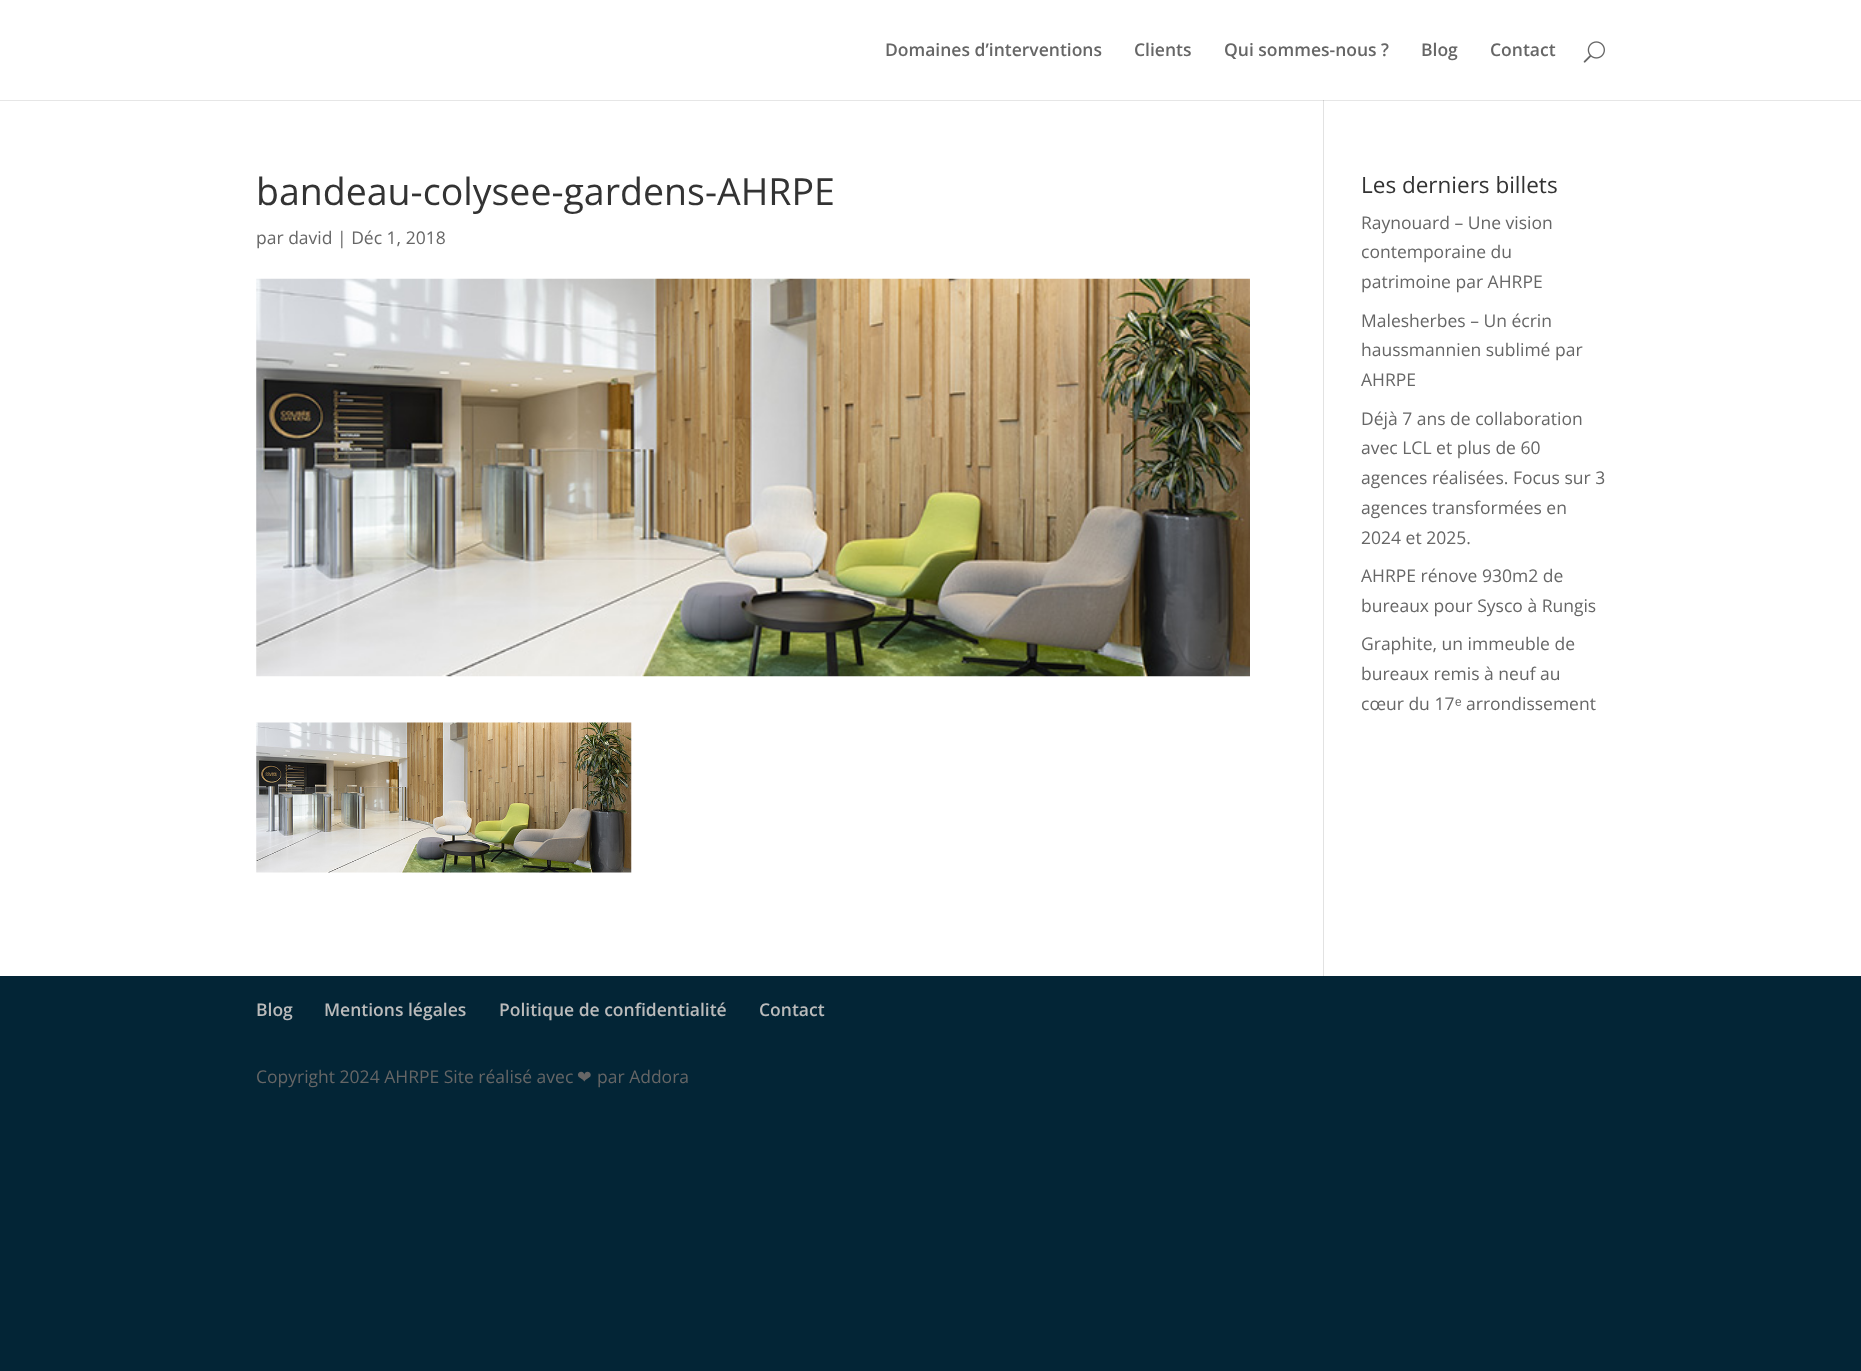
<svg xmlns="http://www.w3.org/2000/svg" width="1861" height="1371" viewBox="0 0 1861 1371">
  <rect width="100%" height="100%" fill="#032536"/>
  <rect x="0" y="0" width="1861" height="100" fill="#ffffff"/>
  <text x="885" y="56" font-family="Open Sans" font-size="17.5" font-weight="600" fill="#666666">Domaines d’interventions</text>
  <text x="1134" y="56" font-family="Open Sans" font-size="17.5" font-weight="600" fill="#666666">Clients</text>
  <text x="1224" y="56" font-family="Open Sans" font-size="17.5" font-weight="600" fill="#666666">Qui sommes-nous ?</text>
  <text x="1421" y="56" font-family="Open Sans" font-size="17.5" font-weight="600" fill="#666666">Blog</text>
  <text x="1490" y="56" font-family="Open Sans" font-size="17.5" font-weight="600" fill="#666666">Contact</text>
  <image x="1583" y="41" width="22" height="22" href="img1.png"/>
  <rect x="0" y="101" width="1861" height="875" fill="#ffffff"/>
  <rect x="0" y="100" width="1861" height="1" fill="#e6e6e6"/>
  <rect x="1323" y="100" width="1" height="876" fill="#e2e2e2"/>
  <rect x="1323" y="100" width="1" height="1" fill="#cbcbcb"/>
  <text x="256" y="205" font-family="Open Sans" font-size="37.5" fill="#333333">bandeau-colysee-gardens-AHRPE</text>
  <text x="256" y="244" font-family="Open Sans" font-size="17.5" fill="#666666">par david | Déc 1, 2018</text>
  <image x="256" y="278" width="994" height="399" href="img2.png"/>
  <image x="256" y="722" width="376" height="151" href="img3.png"/>
  <text x="1361" y="193" font-family="Open Sans" font-size="22.5" fill="#333333">Les derniers billets</text>
  <text x="1361" y="229" font-family="Open Sans" font-size="17.5" fill="#666666">Raynouard – Une vision</text>
  <text x="1361" y="258" font-family="Open Sans" font-size="17.5" fill="#666666">contemporaine du</text>
  <text x="1361" y="288" font-family="Open Sans" font-size="17.5" fill="#666666">patrimoine par AHRPE</text>
  <text x="1361" y="327" font-family="Open Sans" font-size="17.5" fill="#666666">Malesherbes – Un écrin</text>
  <text x="1361" y="356" font-family="Open Sans" font-size="17.5" fill="#666666">haussmannien sublimé par</text>
  <text x="1361" y="386" font-family="Open Sans" font-size="17.5" fill="#666666">AHRPE</text>
  <text x="1361" y="425" font-family="Open Sans" font-size="17.5" fill="#666666">Déjà 7 ans de collaboration</text>
  <text x="1361" y="454" font-family="Open Sans" font-size="17.5" fill="#666666">avec LCL et plus de 60</text>
  <text x="1361" y="484" font-family="Open Sans" font-size="17.5" fill="#666666">agences réalisées. Focus sur 3</text>
  <text x="1361" y="514" font-family="Open Sans" font-size="17.5" fill="#666666">agences transformées en</text>
  <text x="1361" y="544" font-family="Open Sans" font-size="17.5" fill="#666666">2024 et 2025.</text>
  <text x="1361" y="582" font-family="Open Sans" font-size="17.5" fill="#666666">AHRPE rénove 930m2 de</text>
  <text x="1361" y="612" font-family="Open Sans" font-size="17.5" fill="#666666">bureaux pour Sysco à Rungis</text>
  <text x="1361" y="650" font-family="Open Sans" font-size="17.5" fill="#666666">Graphite, un immeuble de</text>
  <text x="1361" y="680" font-family="Open Sans" font-size="17.5" fill="#666666">bureaux remis à neuf au</text>
  <text x="1361" y="710" font-family="Open Sans" font-size="17.5" fill="#666666">cœur du 17</text>
  <text x="1455" y="710" font-family="Liberation Sans" font-size="17.5" fill="#666666">ᵉ</text>
  <text x="1466" y="710" font-family="Open Sans" font-size="17.5" fill="#666666">arrondissement</text>
  <text x="256" y="1016" font-family="Open Sans" font-size="17.5" font-weight="600" fill="#bbbbbb">Blog</text>
  <text x="324" y="1016" font-family="Open Sans" font-size="17.5" font-weight="600" fill="#bbbbbb">Mentions légales</text>
  <text x="499" y="1016" font-family="Open Sans" font-size="17.5" font-weight="600" fill="#bbbbbb">Politique de confidentialité</text>
  <text x="759" y="1016" font-family="Open Sans" font-size="17.5" font-weight="600" fill="#bbbbbb">Contact</text>
  <text x="256" y="1083" font-family="Open Sans" font-size="17.5" fill="#666666">Copyright 2024 AHRPE Site réalisé avec</text>
  <text x="577" y="1083" font-family="DejaVu Sans" font-size="17.5" fill="#666666">❤</text>
  <text x="597" y="1083" font-family="Open Sans" font-size="17.5" fill="#666666">par Addora</text>
</svg>
